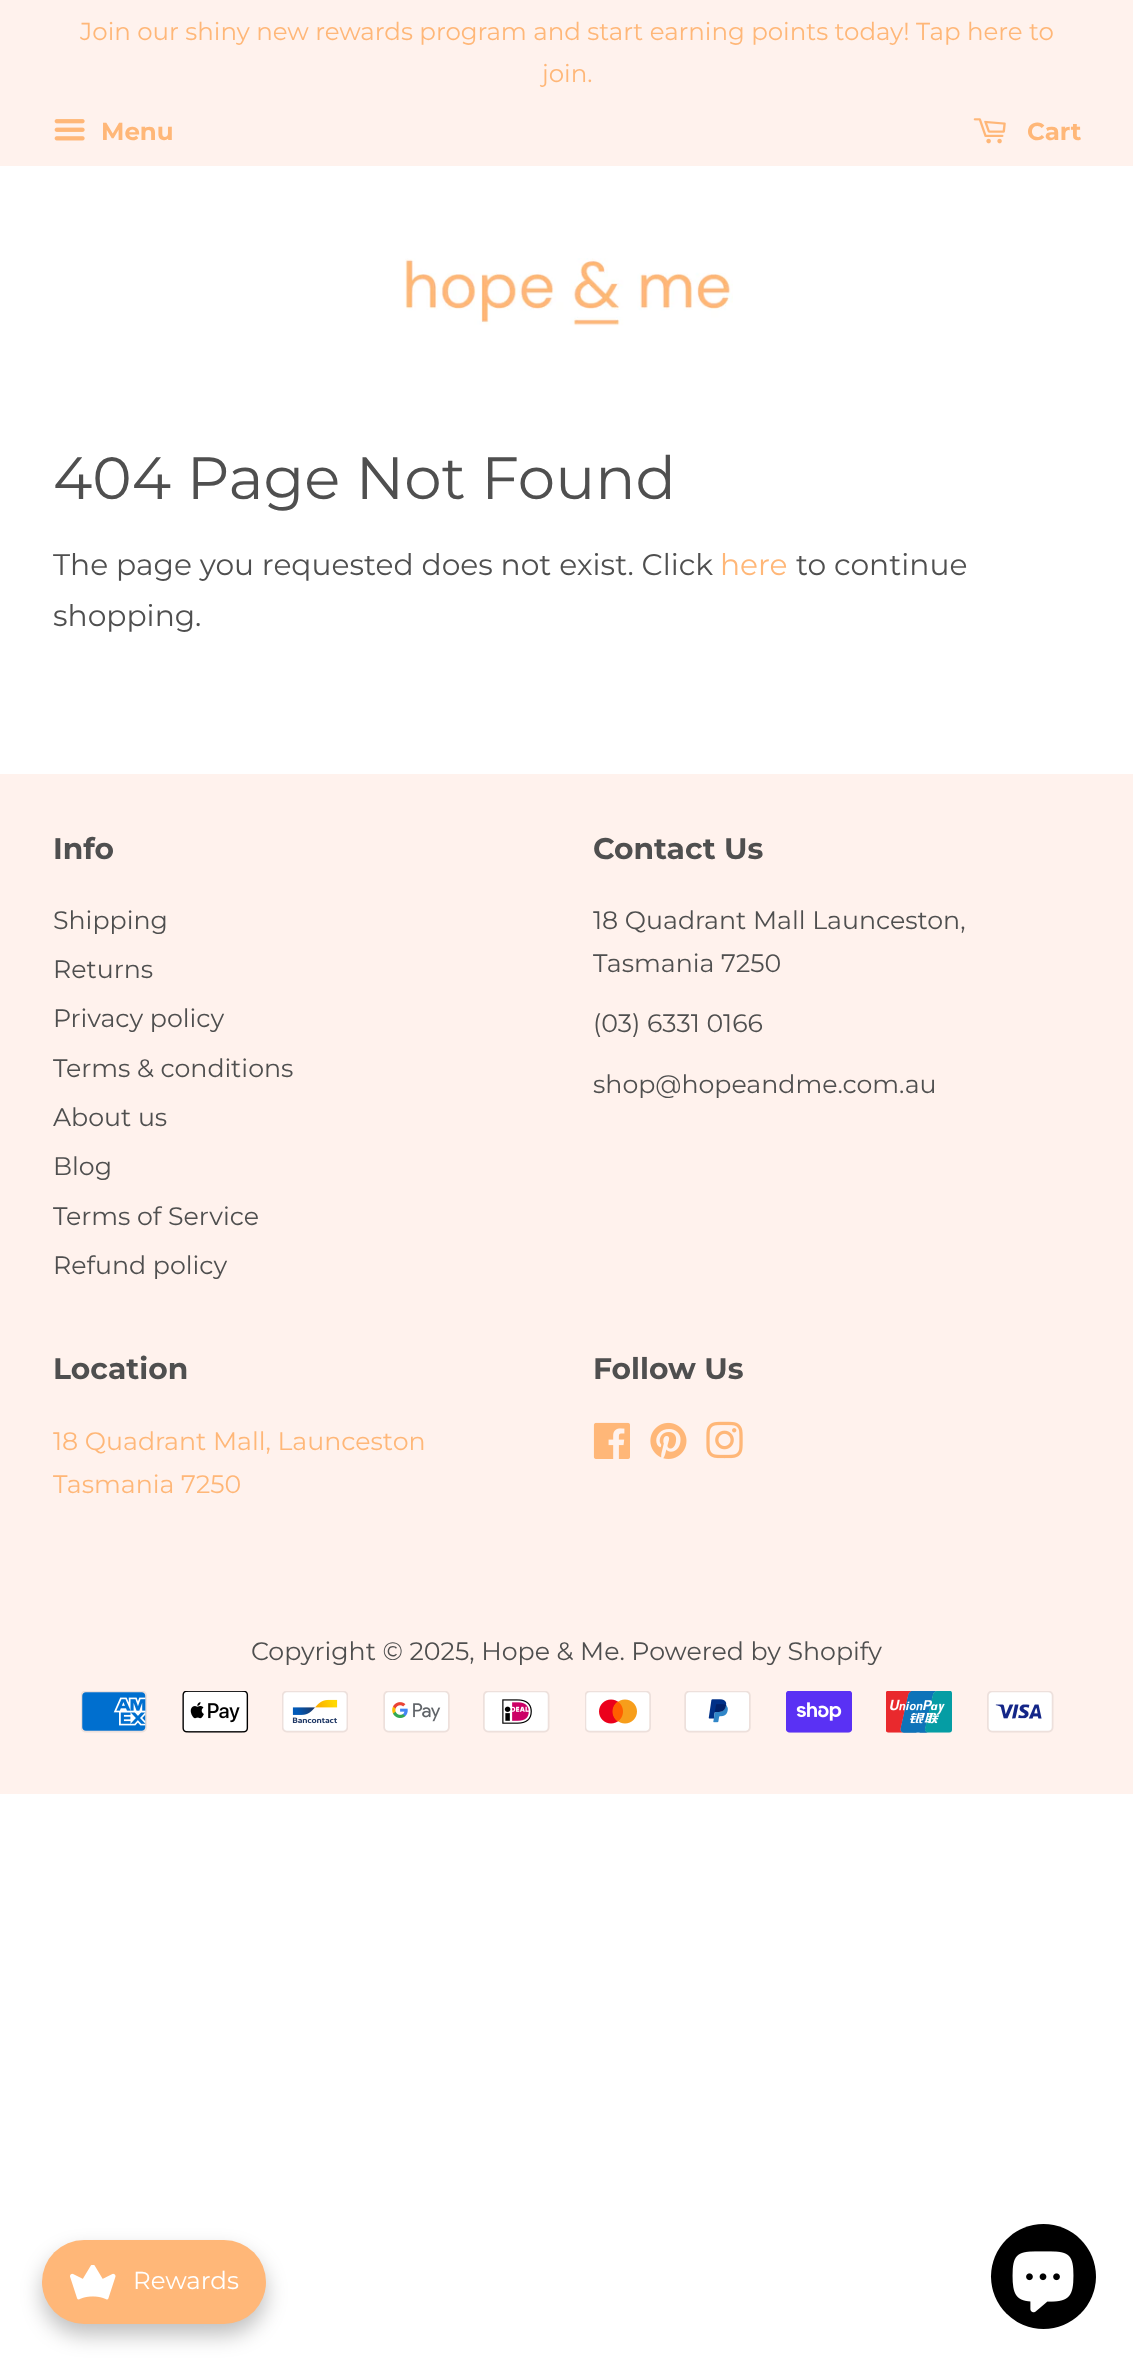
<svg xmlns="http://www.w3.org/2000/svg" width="1133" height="2366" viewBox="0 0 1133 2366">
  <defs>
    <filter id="blur1" x="-50%" y="-200%" width="200%" height="500%"><feGaussianBlur stdDeviation="10.5"/></filter>
  </defs>
  <rect width="100%" height="100%" fill="#ffffff"/>
  <rect x="0" y="0" width="1133" height="166" fill="#fff2ed"/>
  <text x="80" y="40" font-family="Montserrat" font-size="24.5" font-weight="100" fill="#ffb778">Join our shiny new rewards program and start earning points today! Tap here to</text>
  <text x="542" y="82" font-family="Montserrat" font-size="24.5" font-weight="100" fill="#ffb778">join.</text>
  <image x="54" y="119" width="31" height="22" href="img1.png"/>
  <text x="101" y="140" font-family="Montserrat" font-size="24.5" font-weight="bold" fill="#ffb778">Menu</text>
  <image x="973" y="118" width="33" height="26" href="img2.png"/>
  <text x="1027" y="140" font-family="Montserrat" font-size="24.5" font-weight="bold" fill="#ffb778">Cart</text>
  <image x="405" y="258" width="328" height="68" href="img3.png"/>
  <text x="53" y="499" font-family="Montserrat" font-size="59.5" font-weight="100" fill="#4f4f4f">404 Page Not Found</text>
  <text x="53" y="575" font-family="Montserrat" font-size="29.75" font-weight="100" fill="#4f4f4f">The page you requested does not exist. Click</text>
  <text x="720" y="575" font-family="Montserrat" font-size="29.75" font-weight="100" fill="#ffb778">here</text>
  <text x="796" y="575" font-family="Montserrat" font-size="29.75" font-weight="100" fill="#4f4f4f">to continue</text>
  <text x="53" y="626" font-family="Montserrat" font-size="29.75" font-weight="100" fill="#4f4f4f">shopping.</text>
  <rect x="0" y="774" width="1133" height="1020" fill="#fff2ed"/>
  <text x="53" y="859" font-family="Montserrat" font-size="29.75" font-weight="bold" fill="#4f4f4f">Info</text>
  <text x="53" y="929" font-family="Montserrat" font-size="25.25" font-weight="100" fill="#4f4f4f">Shipping</text>
  <text x="53" y="978" font-family="Montserrat" font-size="25.25" font-weight="100" fill="#4f4f4f">Returns</text>
  <text x="53" y="1027" font-family="Montserrat" font-size="25.25" font-weight="100" fill="#4f4f4f">Privacy policy</text>
  <text x="53" y="1077" font-family="Montserrat" font-size="25.25" font-weight="100" fill="#4f4f4f">Terms &amp; conditions</text>
  <text x="53" y="1126" font-family="Montserrat" font-size="25.25" font-weight="100" fill="#4f4f4f">About us</text>
  <text x="53" y="1175" font-family="Montserrat" font-size="25.25" font-weight="100" fill="#4f4f4f">Blog</text>
  <text x="53" y="1225" font-family="Montserrat" font-size="25.25" font-weight="100" fill="#4f4f4f">Terms of Service</text>
  <text x="53" y="1274" font-family="Montserrat" font-size="25.25" font-weight="100" fill="#4f4f4f">Refund policy</text>
  <text x="593" y="859" font-family="Montserrat" font-size="29.75" font-weight="bold" fill="#4f4f4f">Contact Us</text>
  <text x="593" y="929" font-family="Montserrat" font-size="25.25" font-weight="100" fill="#4f4f4f">18 Quadrant Mall Launceston,</text>
  <text x="593" y="972" font-family="Montserrat" font-size="25.25" font-weight="100" fill="#4f4f4f">Tasmania 7250</text>
  <text x="593" y="1032" font-family="Montserrat" font-size="25.25" font-weight="100" fill="#4f4f4f">(03) 6331 0166</text>
  <text x="593" y="1093" font-family="Montserrat" font-size="25.25" font-weight="100" fill="#4f4f4f">shop@hopeandme.com.au</text>
  <text x="53" y="1379" font-family="Montserrat" font-size="29.75" font-weight="bold" fill="#4f4f4f">Location</text>
  <text x="53" y="1450" font-family="Montserrat" font-size="25.25" font-weight="100" fill="#ffb778">18 Quadrant Mall, Launceston</text>
  <text x="53" y="1493" font-family="Montserrat" font-size="25.25" font-weight="100" fill="#ffb778">Tasmania 7250</text>
  <text x="593" y="1379" font-family="Montserrat" font-size="29.75" font-weight="bold" fill="#4f4f4f">Follow Us</text>
  <image x="593" y="1422" width="37" height="37" href="img4.png"/>
  <image x="650" y="1422" width="37" height="37" href="img5.png"/>
  <image x="706" y="1421" width="37" height="38" href="img6.png"/>
  <text x="251" y="1660" font-family="Montserrat" font-size="25.25" font-weight="100" fill="#4f4f4f">Copyright © 2025, Hope &amp; Me. Powered by Shopify</text>
  <image x="81" y="1691" width="66" height="42" href="img7.png"/>
  <image x="182" y="1691" width="67" height="42" href="img8.png"/>
  <image x="282" y="1691" width="66" height="42" href="img9.png"/>
  <image x="383" y="1691" width="67" height="42" href="img10.png"/>
  <image x="483" y="1691" width="67" height="42" href="img11.png"/>
  <image x="585" y="1691" width="66" height="42" href="img12.png"/>
  <image x="684" y="1691" width="67" height="42" href="img13.png"/>
  <image x="786" y="1691" width="66" height="42" href="img14.png"/>
  <image x="886" y="1691" width="66" height="42" href="img15.png"/>
  <image x="987" y="1691" width="67" height="42" href="img16.png"/>
  <rect x="42" y="2251" width="224" height="84" rx="42" fill="#000000" fill-opacity="0.25" filter="url(#blur1)"/>
  <rect x="42" y="2240" width="224" height="84" rx="42" fill="#ffb778"/>
  <image x="70" y="2265" width="46" height="35" href="img17.png"/>
  <text x="133" y="2289" font-family="Montserrat" font-size="24.5" font-weight="100" fill="#ffffff">Rewards</text>
  <circle cx="1043.5" cy="2276.5" r="52.5" fill="#000000"/>
  <image x="1012" y="2251" width="62" height="62" href="img18.png"/>
</svg>
